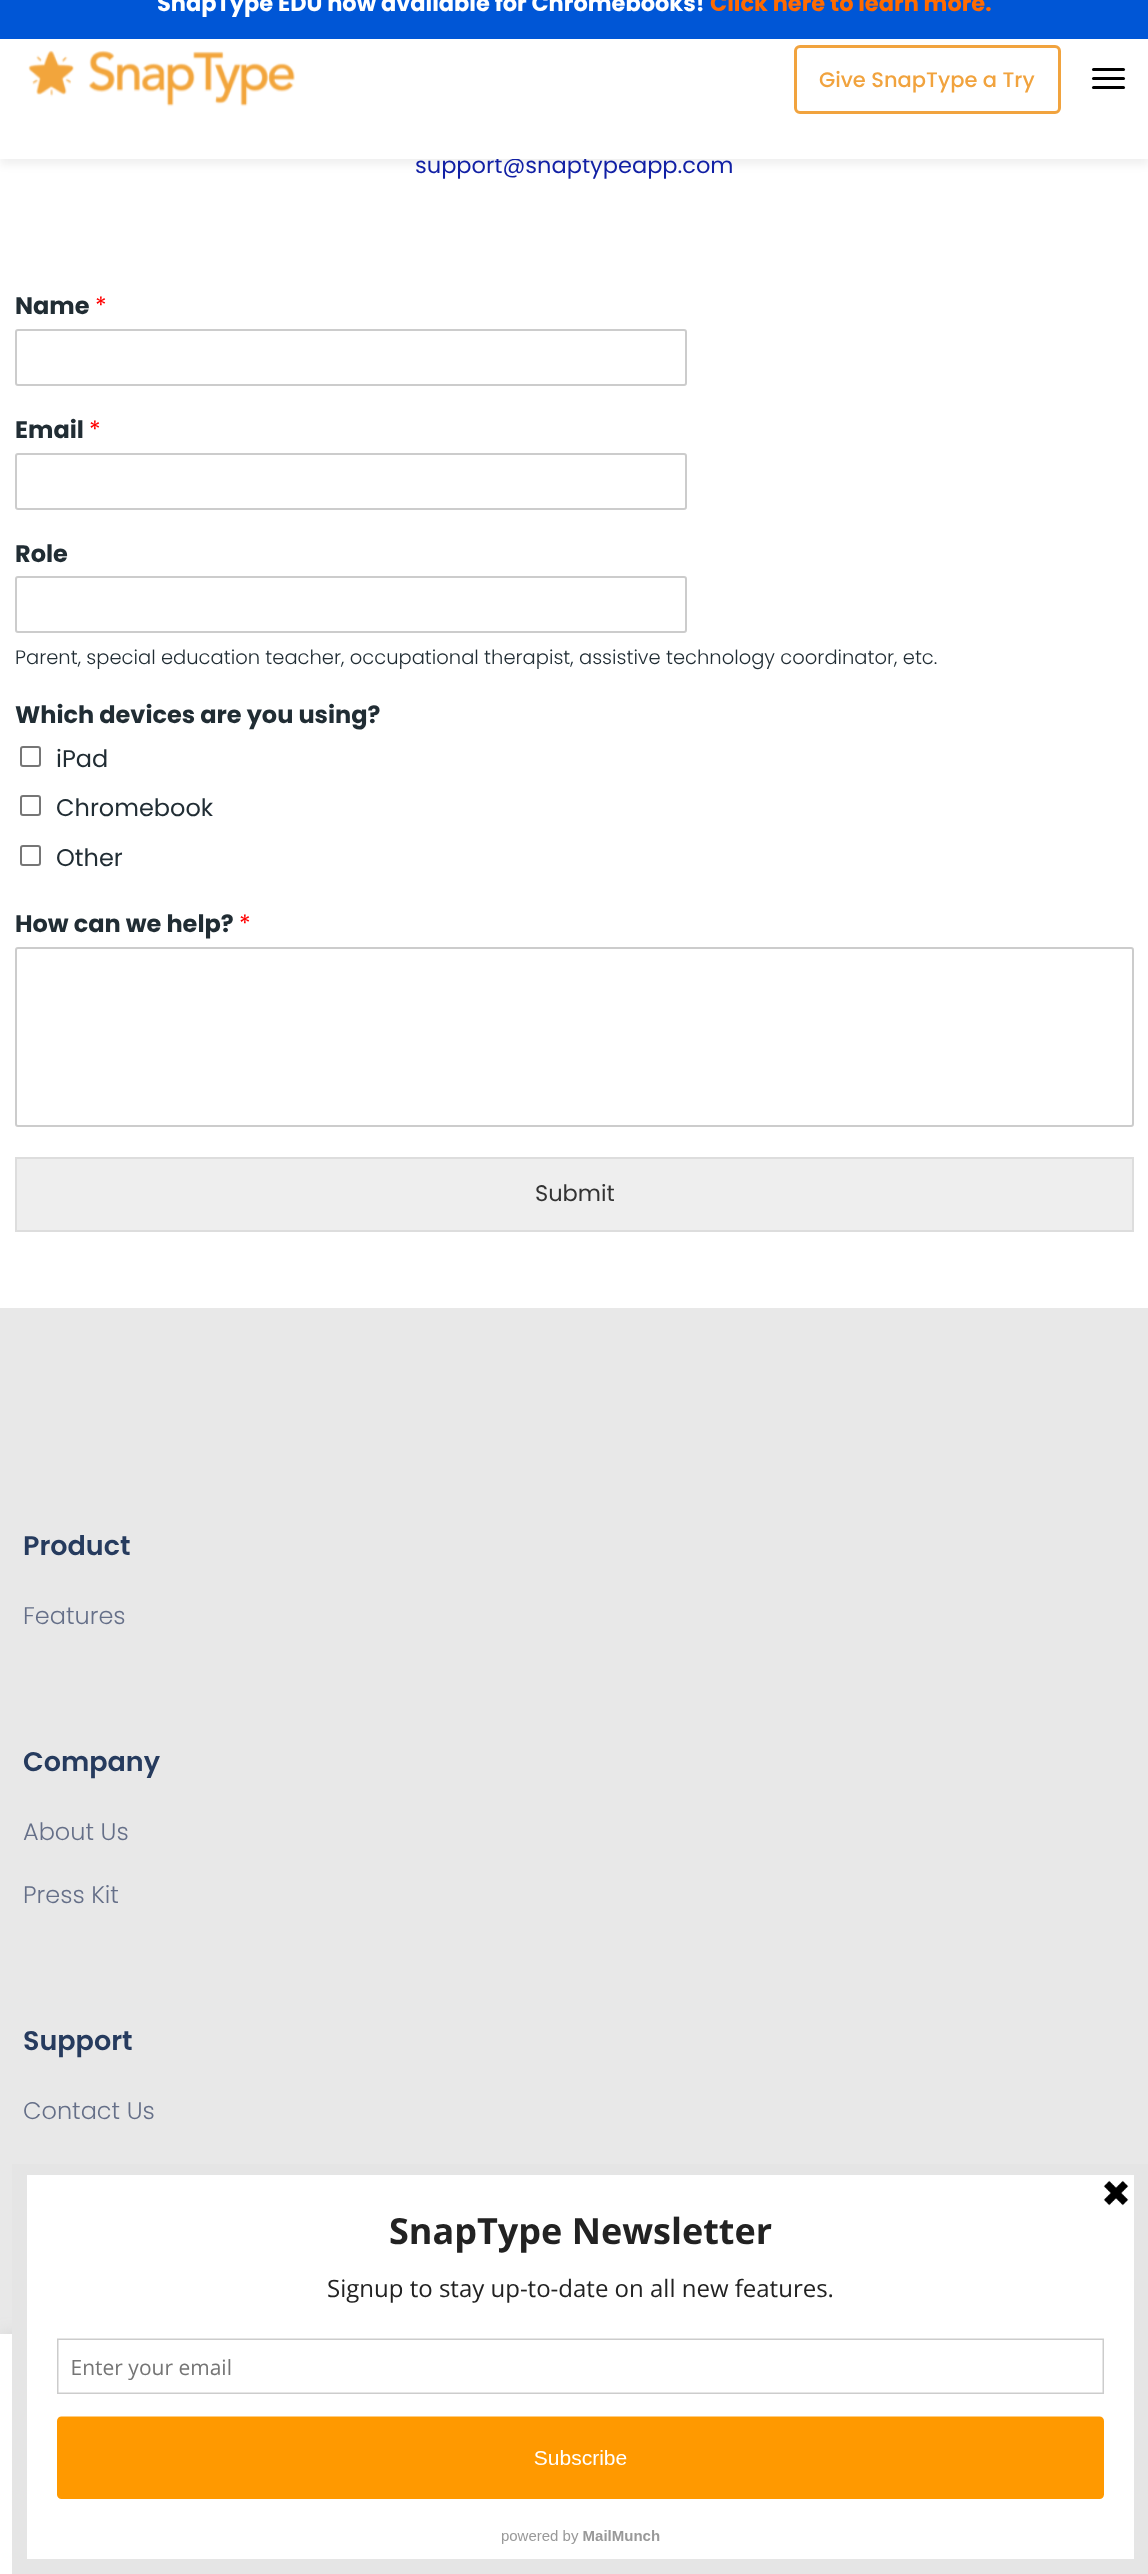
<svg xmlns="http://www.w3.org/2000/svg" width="1148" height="2574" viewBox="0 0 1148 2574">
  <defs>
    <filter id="blur1" x="-50%" y="-200%" width="200%" height="500%"><feGaussianBlur stdDeviation="4.5"/></filter>
    <filter id="blur2" x="-50%" y="-200%" width="200%" height="500%"><feGaussianBlur stdDeviation="7.5"/></filter>
  </defs>
  <rect width="100%" height="100%" fill="#ffffff"/>
  <rect x="0" y="6" width="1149" height="159" fill="#0c002e" fill-opacity="0.06" filter="url(#blur1)"/>
  <rect x="0" y="0" width="1148" height="39" fill="#0056d6"/>
  <text x="157" y="11" font-family="Poppins" font-size="22.5" font-weight="bold" fill="#ffffff">SnapType EDU now available for Chromebooks!</text>
  <text x="710" y="11" font-family="Poppins" font-size="22.5" font-weight="bold" fill="#ff6a00">Click here to learn more.</text>
  <text x="415" y="173" font-family="Poppins" font-size="22.5" fill="#101fa4">support@snaptypeapp.com</text>
  <rect x="0" y="39" width="1148" height="120" fill="#ffffff"/>
  <image x="28" y="50" width="267" height="57" href="img1.png"/>
  <rect x="795.5" y="46.5" width="264" height="66" rx="4.5" fill="none" stroke="#f1a33e" stroke-width="3"/>
  <text x="819" y="87" font-family="Poppins" font-size="21" font-weight="500" fill="#f1a33e">Give SnapType a Try</text>
  <rect x="1092" y="68" width="33" height="3" rx="1.5" fill="#000000"/>
  <rect x="1092" y="77" width="33" height="3" rx="1.5" fill="#000000"/>
  <rect x="1092" y="86" width="33" height="3" rx="1.5" fill="#000000"/>
  <text x="15" y="314" font-family="Poppins" font-size="24" font-weight="bold" fill="#212d34">Name</text>
  <text x="95" y="314" font-family="Poppins" font-size="24" fill="#ff0000">*</text>
  <rect x="16" y="330" width="670" height="55" rx="2" fill="none" stroke="#cccccc" stroke-width="2"/>
  <text x="15" y="438" font-family="Poppins" font-size="24" font-weight="bold" fill="#212d34">Email</text>
  <text x="89" y="438" font-family="Poppins" font-size="24" fill="#ff0000">*</text>
  <rect x="16" y="454" width="670" height="55" rx="2" fill="none" stroke="#cccccc" stroke-width="2"/>
  <text x="15" y="562" font-family="Poppins" font-size="24" font-weight="bold" fill="#212d34">Role</text>
  <rect x="16" y="577" width="670" height="55" rx="2" fill="none" stroke="#cccccc" stroke-width="2"/>
  <text x="15" y="664" font-family="Poppins" font-size="19.5" font-weight="300" fill="#212d34">Parent, special education teacher, occupational therapist, assistive technology coordinator, etc.</text>
  <text x="15" y="723" font-family="Poppins" font-size="24" font-weight="bold" fill="#212d34">Which devices are you using?</text>
  <rect x="21" y="747" width="19" height="19" rx="2" fill="none" stroke="#767676" stroke-width="2"/>
  <text x="56" y="767" font-family="Poppins" font-size="24" fill="#212d34">iPad</text>
  <rect x="21" y="796" width="19" height="19" rx="2" fill="none" stroke="#767676" stroke-width="2"/>
  <text x="56" y="816" font-family="Poppins" font-size="24" fill="#212d34">Chromebook</text>
  <rect x="21" y="846" width="19" height="19" rx="2" fill="none" stroke="#767676" stroke-width="2"/>
  <text x="56" y="866" font-family="Poppins" font-size="24" fill="#212d34">Other</text>
  <text x="15" y="932" font-family="Poppins" font-size="24" font-weight="bold" fill="#212d34">How can we help?</text>
  <text x="239" y="932" font-family="Poppins" font-size="24" fill="#ff0000">*</text>
  <rect x="16" y="948" width="1117" height="178" rx="2" fill="none" stroke="#cccccc" stroke-width="2"/>
  <rect x="16" y="1158" width="1117" height="73" fill="#eeeeee" stroke="#dddddd" stroke-width="2"/>
  <text x="535" y="1201" font-family="Poppins" font-size="22.5" fill="#333333">Submit</text>
  <rect x="0" y="1308" width="1148" height="1026" fill="#e8e8e8"/>
  <text x="23" y="1555" font-family="Poppins" font-size="27" font-weight="600" fill="#263b5e">Product</text>
  <text x="23" y="1624" font-family="Poppins" font-size="24" font-weight="300" fill="#656f88">Features</text>
  <text x="23" y="1771" font-family="Poppins" font-size="27" font-weight="600" fill="#263b5e">Company</text>
  <text x="23" y="1840" font-family="Poppins" font-size="24" font-weight="300" fill="#656f88">About Us</text>
  <text x="23" y="1903" font-family="Poppins" font-size="24" font-weight="300" fill="#656f88">Press Kit</text>
  <text x="23" y="2050" font-family="Poppins" font-size="27" font-weight="600" fill="#263b5e">Support</text>
  <text x="23" y="2119" font-family="Poppins" font-size="24" font-weight="300" fill="#656f88">Contact Us</text>
  <rect x="0" y="2333" width="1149" height="240" fill="#acabab" fill-opacity="0.3" filter="url(#blur2)"/>
  <image x="12" y="2164" width="1136" height="410" href="img2.png"/>
  <rect x="0" y="2334" width="12" height="240" fill="#ffffff"/>
</svg>
